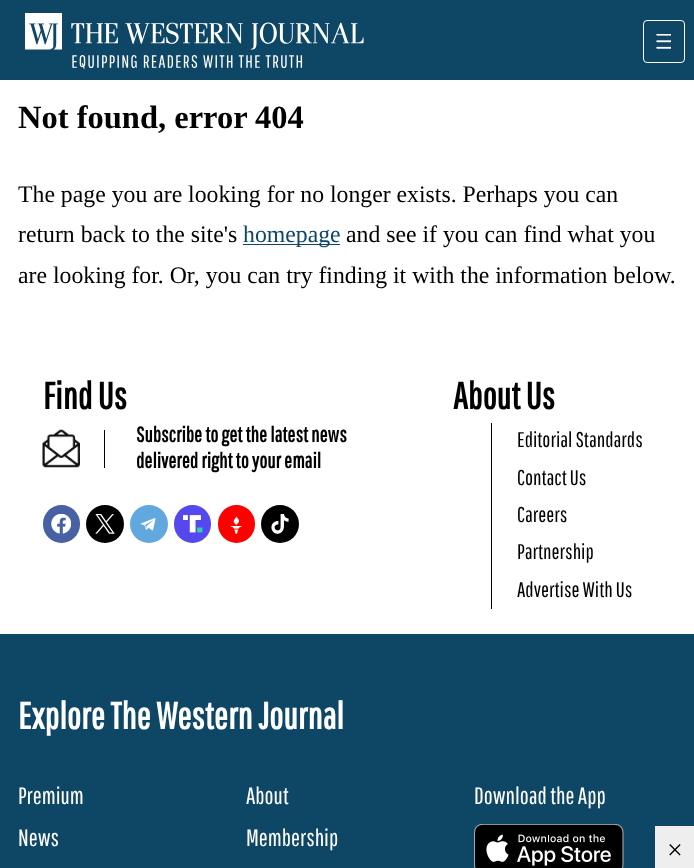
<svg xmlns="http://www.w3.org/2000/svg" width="694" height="868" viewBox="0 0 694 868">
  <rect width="100%" height="100%" fill="#ffffff"/>
  <rect x="0" y="0" width="694" height="80" fill="#0e4666"/>
  <image x="25" y="13" width="339" height="56" href="img1.png"/>
  <rect x="643.5" y="20.5" width="41" height="42" rx="3.5" fill="none" stroke="#ffffff"/>
  <image x="656" y="34" width="15" height="15" href="img2.png"/>
  <text x="18" y="128" font-family="Liberation Serif" font-size="32.5" font-weight="bold" fill="#000000">Not found, error 404</text>
  <text x="18" y="202" font-family="Liberation Serif" font-size="23.75" fill="#000000">The page you are looking for no longer exists. Perhaps you can</text>
  <text x="18" y="242" font-family="Liberation Serif" font-size="23.75" fill="#000000">return back to the site's</text>
  <rect x="243" y="244" width="97" height="1" fill="#0e4666"/>
  <text x="243" y="242" font-family="Liberation Serif" font-size="23.75" fill="#0e4666">homepage</text>
  <text x="346" y="242" font-family="Liberation Serif" font-size="23.75" fill="#000000">and see if you can find what you</text>
  <text x="18" y="283" font-family="Liberation Serif" font-size="23.75" fill="#000000">are looking for. Or, you can try finding it with the information below.</text>
  <text x="43" y="409" font-family="Pathway Gothic One" font-size="37.5" font-weight="bold" fill="#000000">Find Us</text>
  <image x="42" y="429" width="38" height="39" href="img3.png"/>
  <rect x="104" y="430" width="1" height="38" fill="#000000"/>
  <text x="136" y="442" font-family="Pathway Gothic One" font-size="21.25" font-weight="bold" fill="#000000">Subscribe to get the latest news</text>
  <text x="136" y="468" font-family="Pathway Gothic One" font-size="21.25" font-weight="bold" fill="#000000">delivered right to your email</text>
  <rect x="43" y="505" width="37" height="38" rx="18.5" fill="#4861a3"/>
  <image x="51" y="514" width="20" height="20" href="img4.png"/>
  <circle cx="105" cy="524" r="19" fill="#000000"/>
  <image x="95" y="514" width="20" height="20" href="img5.png"/>
  <circle cx="149" cy="524" r="19" fill="#61a8de"/>
  <image x="140" y="518" width="16" height="13" href="img6.png"/>
  <rect x="174" y="505" width="37" height="38" rx="18.5" fill="#5448ee"/>
  <image x="183" y="515" width="20" height="18" href="img7.png"/>
  <rect x="218" y="505" width="37" height="38" rx="18.5" fill="#ff0000"/>
  <image x="230" y="516" width="12" height="18" href="img8.png"/>
  <circle cx="280" cy="524" r="19" fill="#000000"/>
  <image x="271" y="514" width="18" height="20" href="img9.png"/>
  <text x="453" y="409" font-family="Pathway Gothic One" font-size="37.5" font-weight="bold" fill="#000000">About Us</text>
  <rect x="491" y="423" width="1" height="186" fill="#000000"/>
  <text x="517" y="447" font-family="Pathway Gothic One" font-size="21.25" fill="#000000">Editorial Standards</text>
  <text x="517" y="485" font-family="Pathway Gothic One" font-size="21.25" fill="#000000">Contact Us</text>
  <text x="517" y="522" font-family="Pathway Gothic One" font-size="21.25" fill="#000000">Careers</text>
  <text x="517" y="559" font-family="Pathway Gothic One" font-size="21.25" fill="#000000">Partnership</text>
  <text x="517" y="597" font-family="Pathway Gothic One" font-size="21.25" fill="#000000">Advertise With Us</text>
  <rect x="0" y="634" width="694" height="234" fill="#0e4666"/>
  <text x="18" y="729" font-family="Pathway Gothic One" font-size="37.5" font-weight="bold" fill="#ffffff">Explore The Western Journal</text>
  <text x="18" y="804" font-family="Pathway Gothic One" font-size="23.75" fill="#ffffff">Premium</text>
  <text x="246" y="804" font-family="Pathway Gothic One" font-size="23.75" fill="#ffffff">About</text>
  <text x="474" y="804" font-family="Pathway Gothic One" font-size="23.75" fill="#ffffff">Download the App</text>
  <text x="18" y="846" font-family="Pathway Gothic One" font-size="23.75" fill="#ffffff">News</text>
  <text x="246" y="846" font-family="Pathway Gothic One" font-size="23.75" fill="#ffffff">Membership</text>
  <image x="474" y="824" width="150" height="44" href="img10.png"/>
  <rect x="655" y="826" width="39" height="42" fill="#eeeeee"/>
  <text x="667" y="859" font-family="Liberation Serif" font-size="28" fill="#000000">×</text>
</svg>
